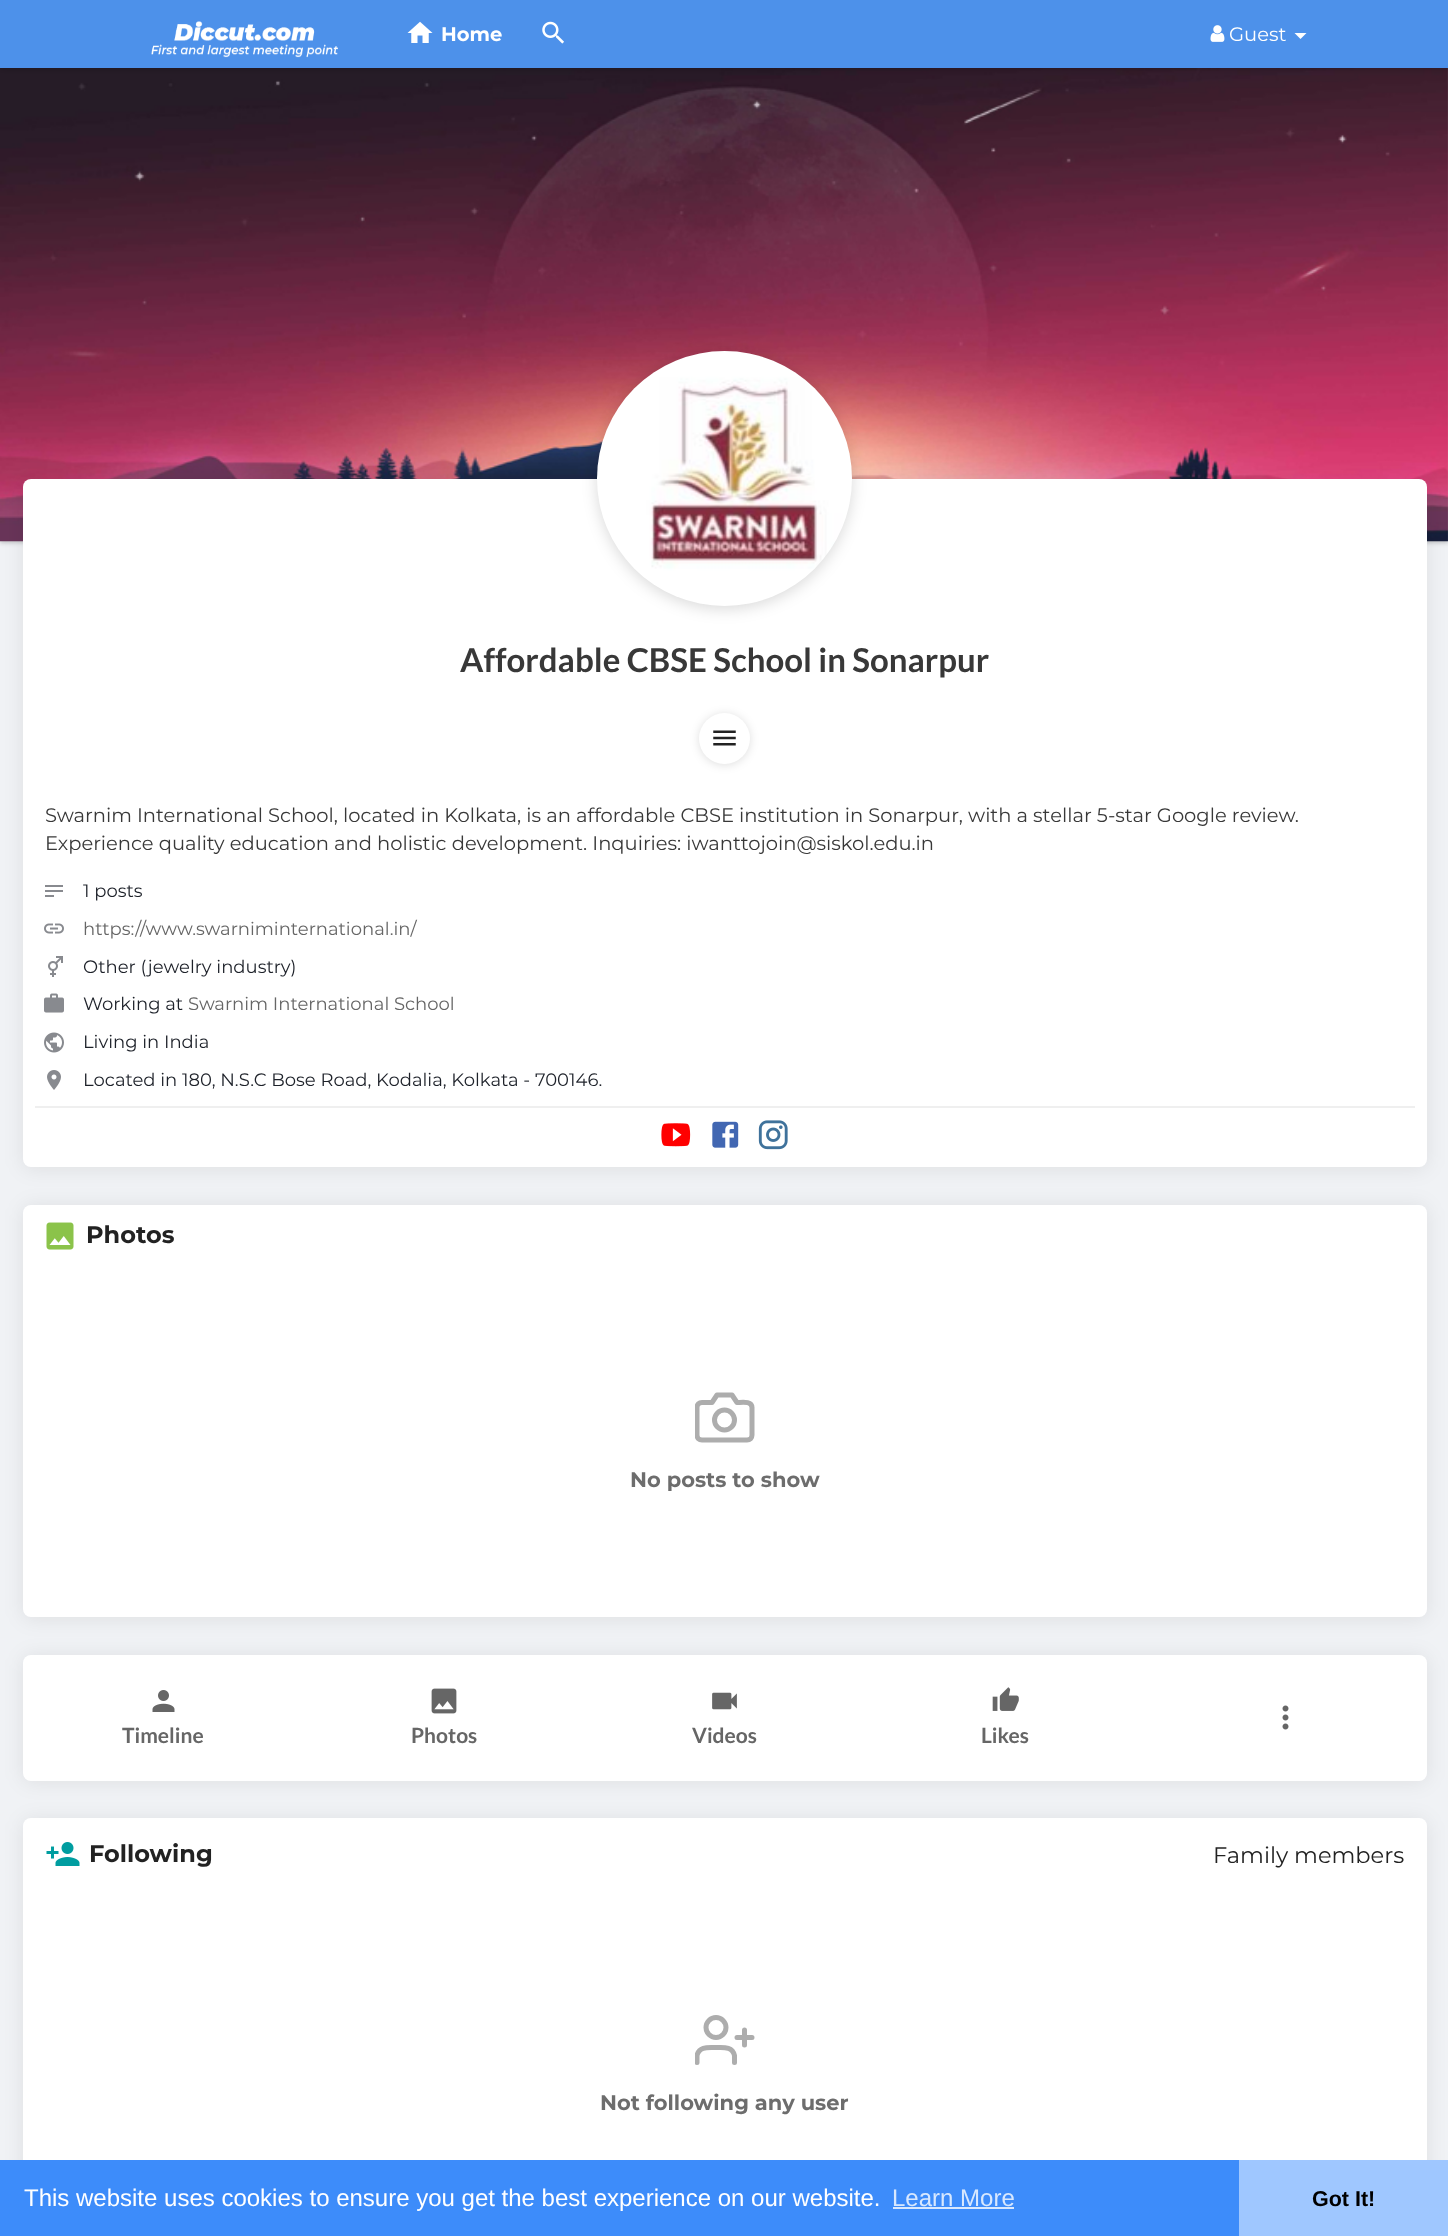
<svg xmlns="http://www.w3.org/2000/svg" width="1448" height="2236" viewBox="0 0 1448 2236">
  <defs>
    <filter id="blur1" x="-50%" y="-200%" width="200%" height="500%"><feGaussianBlur stdDeviation="2"/></filter>
    <filter id="blur2" x="-50%" y="-200%" width="200%" height="500%"><feGaussianBlur stdDeviation="3"/></filter>
    <filter id="blur3" x="-50%" y="-200%" width="200%" height="500%"><feGaussianBlur stdDeviation="10"/></filter>
    <filter id="blur4" x="-50%" y="-200%" width="200%" height="500%"><feGaussianBlur stdDeviation="7.5"/></filter>
    <filter id="blur5" x="-50%" y="-200%" width="200%" height="500%"><feGaussianBlur stdDeviation="5"/></filter>
    <clipPath id="clip1"><rect x="695" y="1388" width="60" height="60"/></clipPath>
    <clipPath id="clip2"><rect x="695" y="2010" width="60" height="60"/></clipPath>
  </defs>
  <rect width="100%" height="100%" fill="#f0f2f5"/>
  <rect x="0" y="69" width="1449" height="474" fill="#000000" fill-opacity="0.2" filter="url(#blur1)"/>
  <image x="0" y="68" width="1448" height="474" href="img5.png"/>
  <rect x="0" y="2" width="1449" height="67" fill="#000000" fill-opacity="0.2" filter="url(#blur2)"/>
  <rect x="0" y="0" width="1448" height="68" fill="#4d91ea"/>
  <image x="151" y="21" width="187" height="37" href="img1.png"/>
  <image x="407" y="21" width="26" height="22" href="img2.png"/>
  <text x="441" y="41" font-family="Montserrat" font-size="19.5" font-weight="bold" fill="#ffffff">Home</text>
  <image x="542" y="21" width="22" height="23" href="img3.png"/>
  <image x="1210" y="25" width="15" height="17" href="img4.png"/>
  <text x="1229" y="41" font-family="Montserrat" font-size="19.5" fill="#ffffff">Guest</text>
  <path d="M1294.5 33H1306.5L1300.5 39Z" fill="#ffffff"/>
  <rect x="23" y="480" width="1404" height="689" rx="8" fill="#000000" fill-opacity="0.08" filter="url(#blur3)"/>
  <rect x="23" y="479" width="1404" height="688" rx="8" fill="#ffffff"/>
  <rect x="597" y="354" width="255" height="255" rx="127.5" fill="#000000" fill-opacity="0.15" filter="url(#blur4)"/>
  <image x="597" y="351" width="255" height="255" href="img6.png"/>
  <text x="460" y="672" font-family="Lato" font-size="33" font-weight="bold" fill="#383838">Affordable CBSE School in Sonarpur</text>
  <rect x="699" y="714" width="51" height="51" rx="25.5" fill="#000000" fill-opacity="0.13" filter="url(#blur5)"/>
  <circle cx="724.5" cy="738.5" r="25.5" fill="#ffffff"/>
  <image x="713" y="730" width="23" height="16" href="img7.png"/>
  <text x="45" y="822" font-family="Montserrat" font-size="19.5" fill="#383838">Swarnim International School, located in Kolkata, is an affordable CBSE institution in Sonarpur, with a stellar 5-star Google review.</text>
  <text x="45" y="850" font-family="Montserrat" font-size="19.5" fill="#383838">Experience quality education and holistic development. Inquiries: iwanttojoin@siskol.edu.in</text>
  <image x="45" y="885" width="18" height="12" href="img8.png"/>
  <text x="83" y="897" font-family="Montserrat" font-size="18" fill="#1d2129">1 posts</text>
  <image x="44" y="923" width="20" height="11" href="img9.png"/>
  <text x="83" y="935" font-family="Montserrat" font-size="18" fill="#666666">https://www.swarniminternational.in/</text>
  <image x="48" y="956" width="15" height="21" href="img10.png"/>
  <text x="83" y="973" font-family="Montserrat" font-size="18" fill="#1d2129">Other (jewelry industry)</text>
  <image x="44" y="993" width="20" height="20" href="img11.png"/>
  <text x="83" y="1010" font-family="Montserrat" font-size="18" fill="#1d2129">Working at</text>
  <text x="188" y="1010" font-family="Montserrat" font-size="18" fill="#666666">Swarnim International School</text>
  <image x="44" y="1032" width="20" height="21" href="img12.png"/>
  <text x="83" y="1048" font-family="Montserrat" font-size="18" fill="#1d2129">Living in India</text>
  <image x="47" y="1070" width="14" height="20" href="img13.png"/>
  <text x="83" y="1086" font-family="Montserrat" font-size="18" fill="#1d2129">Located in 180, N.S.C Bose Road, Kodalia, Kolkata - 700146.</text>
  <rect x="35" y="1106" width="1380" height="2" fill="#efefef"/>
  <image x="661" y="1123" width="30" height="24" href="img14.png"/>
  <image x="712" y="1121" width="27" height="27" href="img15.png"/>
  <image x="758" y="1120" width="30" height="30" href="img16.png"/>
  <rect x="23" y="1206" width="1404" height="413" rx="8" fill="#000000" fill-opacity="0.08" filter="url(#blur3)"/>
  <rect x="23" y="1205" width="1404" height="412" rx="8" fill="#ffffff"/>
  <image x="46" y="1222" width="28" height="28" href="img17.png"/>
  <text x="86" y="1243" font-family="Montserrat" font-size="24" font-weight="bold" fill="#222222">Photos</text>
  <g clip-path="url(#clip1)">
    <path d="M752 1435C752 1438 750 1440 747 1440H702C699 1440 697 1438 697 1435V1407.5C697 1404.5 699 1402.5 702 1402.5H712L717 1395H732L737 1402.5C741.5 1402.5 752 1400.5 752 1407.5Z" fill="none" stroke="#adadad" stroke-width="5" stroke-linecap="round" stroke-linejoin="round"/>
  </g>
  <circle cx="724.5" cy="1420" r="10" fill="none" stroke="#adadad" stroke-width="5"/>
  <text x="630" y="1487" font-family="Montserrat" font-size="21" font-weight="bold" fill="#6d6d6d">No posts to show</text>
  <rect x="23" y="1656" width="1404" height="126" rx="8" fill="#000000" fill-opacity="0.08" filter="url(#blur3)"/>
  <rect x="23" y="1655" width="1404" height="126" rx="8" fill="#ffffff"/>
  <image x="1282" y="1705" width="7" height="25" href="img18.png"/>
  <image x="152" y="1690" width="23" height="22" href="img19.png"/>
  <text x="122" y="1743" font-family="Lato" font-size="21" font-weight="bold" fill="#666666">Timeline</text>
  <image x="431" y="1688" width="26" height="26" href="img20.png"/>
  <text x="411" y="1743" font-family="Lato" font-size="21" font-weight="bold" fill="#666666">Photos</text>
  <image x="712" y="1692" width="25" height="18" href="img21.png"/>
  <text x="692" y="1743" font-family="Lato" font-size="21" font-weight="bold" fill="#666666">Videos</text>
  <image x="992" y="1687" width="27" height="24" href="img22.png"/>
  <text x="981" y="1743" font-family="Lato" font-size="21" font-weight="bold" fill="#666666">Likes</text>
  <rect x="23" y="1820" width="1404" height="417" rx="8" fill="#000000" fill-opacity="0.08" filter="url(#blur3)"/>
  <rect x="23" y="1818" width="1404" height="417" rx="8" fill="#ffffff"/>
  <image x="46" y="1842" width="34" height="24" href="img23.png"/>
  <text x="89" y="1862" font-family="Montserrat" font-size="24" font-weight="bold" fill="#222222">Following</text>
  <text x="1213" y="1863" font-family="Montserrat" font-size="22.5" fill="#222222">Family members</text>
  <g clip-path="url(#clip2)">
    <path d="M734.5 2062.5V2055.5C732.5 2046 723 2047.5 716 2047.5C708.5 2047.5 699 2046 697 2055.5V2062.5" fill="none" stroke="#adadad" stroke-width="5" stroke-linecap="round" stroke-linejoin="round"/>
  </g>
  <circle cx="716" cy="2027.5" r="10" fill="none" stroke="#adadad" stroke-width="5"/>
  <path d="M744.5 2030V2045M752 2037.5H737" fill="none" stroke="#adadad" stroke-width="5" stroke-linecap="round" stroke-linejoin="round"/>
  <text x="600" y="2110" font-family="Montserrat" font-size="21" font-weight="bold" fill="#6d6d6d">Not following any user</text>
  <rect x="0" y="2160" width="1239" height="76" fill="#3d8cfa"/>
  <text x="24" y="2206" font-family="Liberation Sans" font-size="24" fill="#ffffff">This website uses cookies to ensure you get the best experience on our website.</text>
  <text x="892" y="2206" font-family="Liberation Sans" font-size="24" fill="#d8e8fe">Learn More</text>
  <rect x="893" y="2207" width="121" height="2" fill="#d8e8fe"/>
  <rect x="1239" y="2160" width="209" height="76" fill="#9fc7ff"/>
  <text x="1312" y="2206" font-family="Liberation Sans" font-size="21.5" font-weight="bold" fill="#000000">Got It!</text>
</svg>
